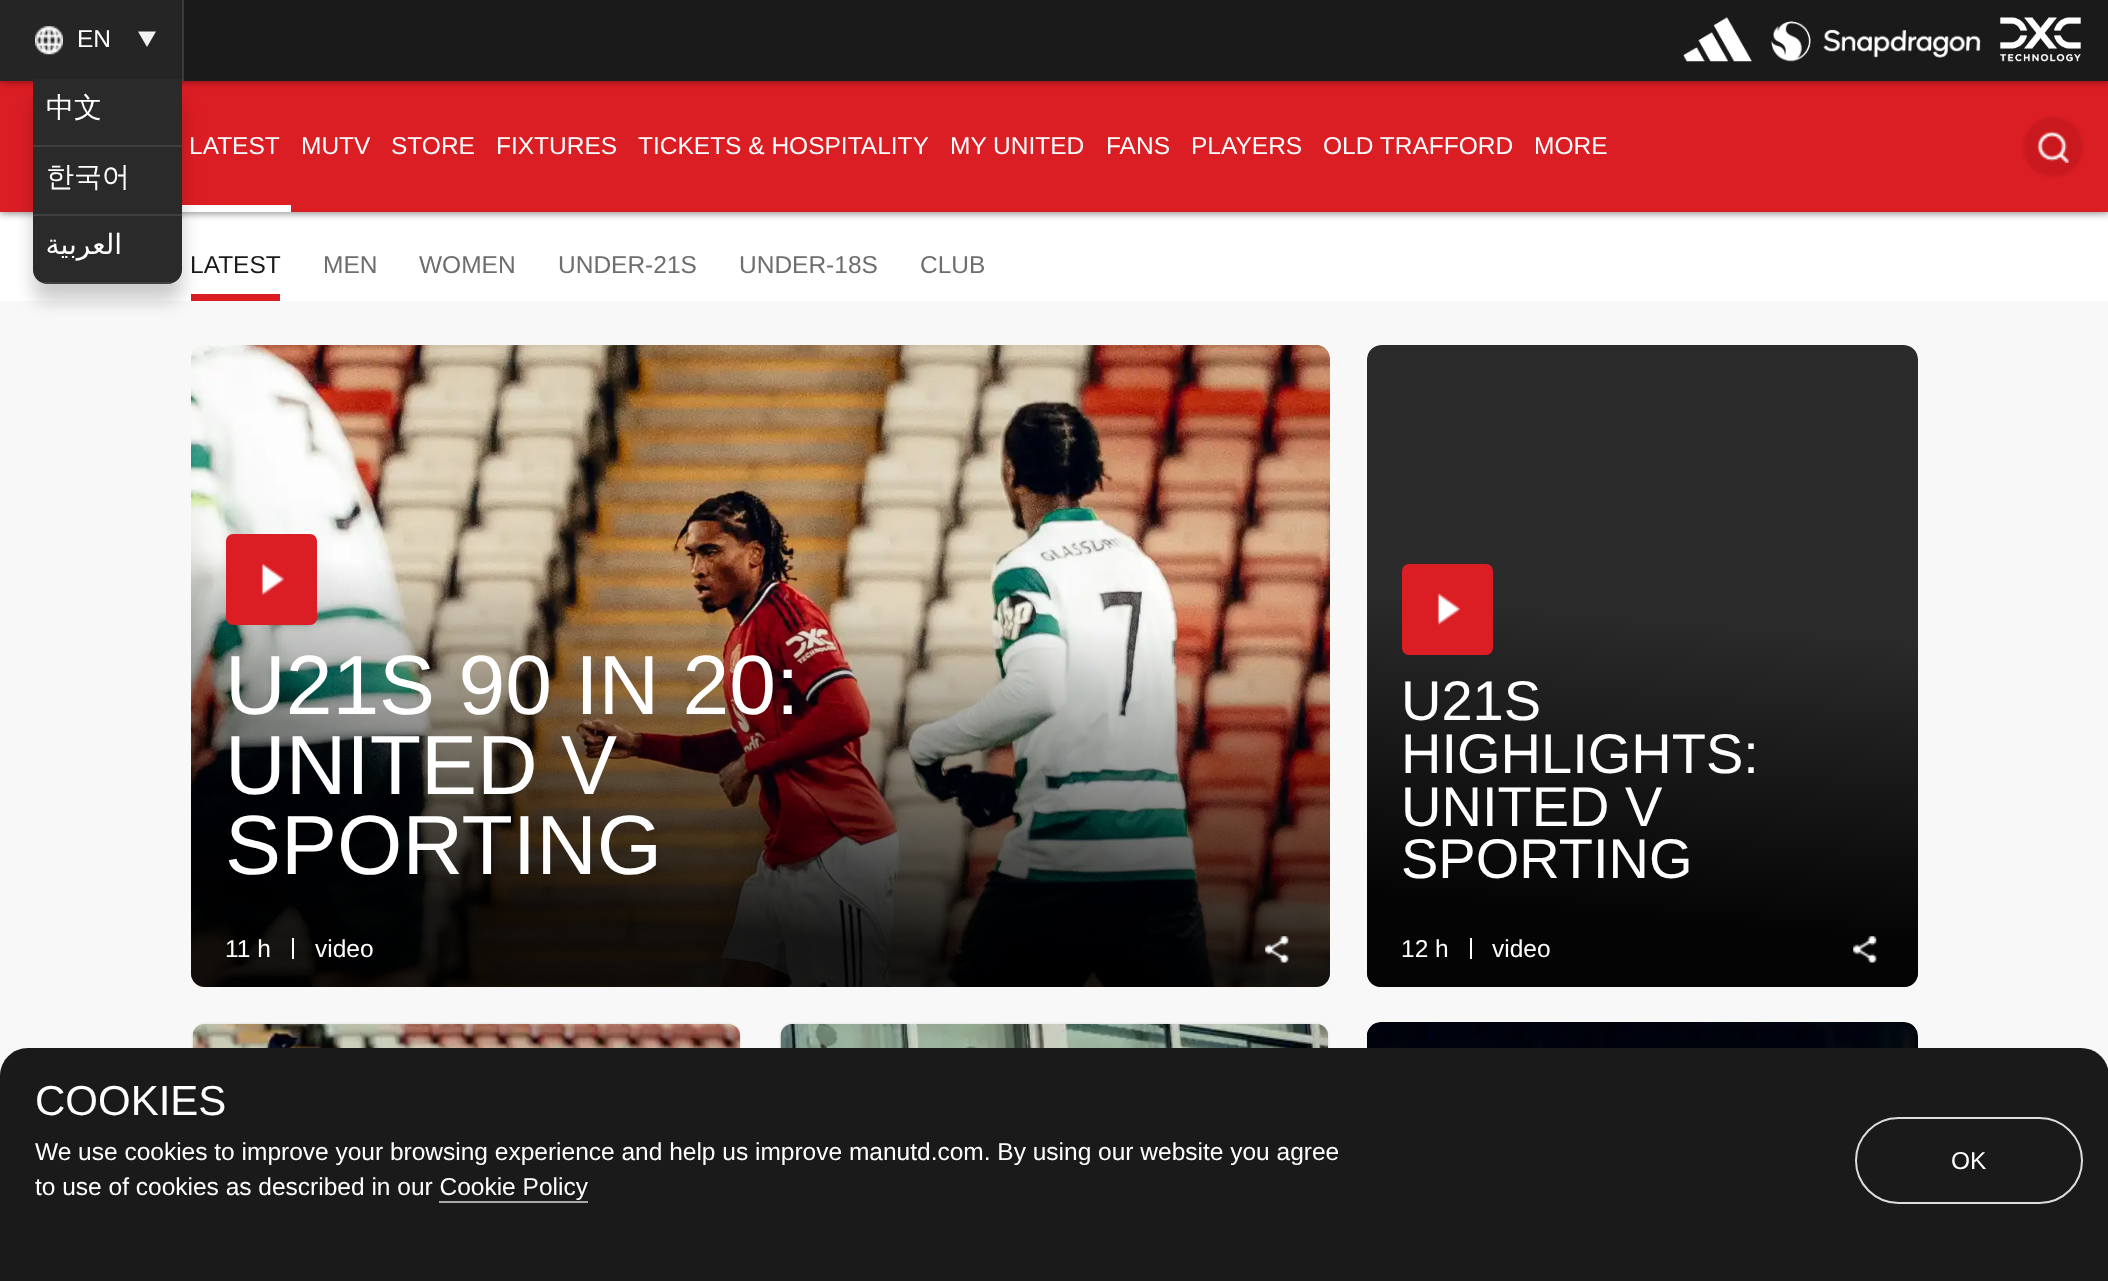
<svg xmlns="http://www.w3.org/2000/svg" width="2108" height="1281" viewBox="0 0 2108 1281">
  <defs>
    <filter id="blur1" x="-50%" y="-200%" width="200%" height="500%"><feGaussianBlur stdDeviation="3.5"/></filter>
    <filter id="blur2" x="-50%" y="-200%" width="200%" height="500%"><feGaussianBlur stdDeviation="9"/></filter>
    <clipPath id="clip1"><path d="M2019 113H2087V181H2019ZM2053 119C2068.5 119 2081 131.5 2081 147C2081 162.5 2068.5 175 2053 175C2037.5 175 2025 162.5 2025 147C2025 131.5 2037.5 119 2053 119Z" clip-rule="evenodd"/></clipPath>
    <filter id="blur3" x="-50%" y="-200%" width="200%" height="500%"><feGaussianBlur stdDeviation="1"/></filter>
    <linearGradient id="g1" gradientUnits="userSpaceOnUse" x1="785" y1="485" x2="736" y2="1044"><stop offset="0.2" stop-color="#000000" stop-opacity="0"/><stop offset="0.8" stop-color="#000000" stop-opacity="0.9"/></linearGradient>
    <clipPath id="clip2"><path d="M1381 345H1904C1911.5 345 1918 351.5 1918 359V975C1918 981.5 1912.5 987 1906 987H1379C1372.5 987 1367 981.5 1367 975V359C1367 351.5 1373.5 345 1381 345Z"/></clipPath>
    <linearGradient id="g2" gradientUnits="userSpaceOnUse" x1="1665" y1="511" x2="1620" y2="1018"><stop offset="0.2" stop-color="#000000" stop-opacity="0"/><stop offset="0.8" stop-color="#000000" stop-opacity="0.9"/></linearGradient>
  </defs>
  <rect width="100%" height="100%" fill="#ffffff"/>
  <rect x="0" y="82" width="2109" height="132" fill="#000000" fill-opacity="0.4" filter="url(#blur1)"/>
  <rect x="0" y="81" width="2108" height="131" fill="#db1d24"/>
  <rect x="0" y="2" width="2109" height="80" fill="#000000" fill-opacity="0.4" filter="url(#blur1)"/>
  <rect x="184" y="0" width="1924" height="81" fill="#1a1a1a"/>
  <rect x="0" y="0" width="182" height="81" fill="#252525"/>
  <rect x="182" y="0" width="2" height="81" fill="#3b3b3b"/>
  <image x="35" y="26" width="28" height="29" href="img1.png"/>
  <text x="77" y="47" font-family="Liberation Sans" font-size="24.5" fill="#ffffff">EN</text>
  <path d="M138 31.5H156L147 47Z" fill="#f2f2f2"/>
  <rect x="179" y="205" width="112" height="7" fill="#ffffff"/>
  <rect x="191" y="294" width="89" height="7" fill="#db1d24"/>
  <rect x="0" y="301" width="2108" height="775" fill="#f8f8f8"/>
  <rect x="33" y="96" width="149" height="205" rx="14" fill="#000000" fill-opacity="0.2" filter="url(#blur2)"/>
  <path d="M33 79H182V270C182 277.5 175.5 284 168 284H47C39.5 284 33 277.5 33 270Z" fill="#2a2a2a"/>
  <rect x="33" y="145" width="149" height="2" fill="#3f3f3f"/>
  <text x="46" y="117" font-family="WenQuanYi Zen Hei" font-size="28" font-weight="500" fill="#ffffff">中文</text>
  <rect x="33" y="214" width="149" height="2" fill="#3f3f3f"/>
  <text x="46" y="186" font-family="WenQuanYi Zen Hei" font-size="28" font-weight="500" fill="#ffffff">한국어</text>
  <rect x="33" y="282" width="149" height="2" fill="#ffffff" fill-opacity="0.1"/>
  <text x="122" y="254" font-family="DejaVu Sans" font-size="28" direction="rtl" fill="#ffffff">العربية</text>
  <image x="1683" y="17" width="69" height="45" href="img2.png"/>
  <image x="1771" y="21" width="210" height="41" href="img3.png"/>
  <image x="2000" y="17" width="81" height="45" href="img4.png"/>
  <text x="189" y="154" font-family="Liberation Sans" font-size="24.5" fill="#ffffff">LATEST</text>
  <text x="301" y="154" font-family="Liberation Sans" font-size="24.5" fill="#ffffff">MUTV</text>
  <text x="391" y="154" font-family="Liberation Sans" font-size="24.5" fill="#ffffff">STORE</text>
  <text x="496" y="154" font-family="Liberation Sans" font-size="24.5" fill="#ffffff">FIXTURES</text>
  <text x="638" y="154" font-family="Liberation Sans" font-size="24.5" fill="#ffffff">TICKETS &amp; HOSPITALITY</text>
  <text x="950" y="154" font-family="Liberation Sans" font-size="24.5" fill="#ffffff">MY UNITED</text>
  <text x="1106" y="154" font-family="Liberation Sans" font-size="24.5" fill="#ffffff">FANS</text>
  <text x="1191" y="154" font-family="Liberation Sans" font-size="24.5" fill="#ffffff">PLAYERS</text>
  <text x="1323" y="154" font-family="Liberation Sans" font-size="24.5" fill="#ffffff">OLD TRAFFORD</text>
  <text x="1534" y="154" font-family="Liberation Sans" font-size="24.5" fill="#ffffff">MORE</text>
  <g clip-path="url(#clip1)">
    <rect x="2023" y="117" width="60" height="60" rx="30" fill="#4e0303" fill-opacity="0.12" filter="url(#blur3)"/>
  </g>
  <circle cx="2053" cy="147" r="28" fill="#4e0303" fill-opacity="0.12"/>
  <image x="2037" y="131" width="32" height="32" href="img5.png"/>
  <text x="190" y="273" font-family="Liberation Sans" font-size="24.5" fill="#1a1a1a">LATEST</text>
  <text x="323" y="273" font-family="Liberation Sans" font-size="24.5" fill="#6e6e6e">MEN</text>
  <text x="419" y="273" font-family="Liberation Sans" font-size="24.5" fill="#6e6e6e">WOMEN</text>
  <text x="558" y="273" font-family="Liberation Sans" font-size="24.5" fill="#6e6e6e">UNDER-21S</text>
  <text x="739" y="273" font-family="Liberation Sans" font-size="24.5" fill="#6e6e6e">UNDER-18S</text>
  <text x="920" y="273" font-family="Liberation Sans" font-size="24.5" fill="#6e6e6e">CLUB</text>
  <image x="191" y="345" width="1139" height="642" href="img6.png"/>
  <path d="M1330 534V973C1330 981 1324 987 1316 987H205C197 987 191 981 191 973V534Z" fill="url(#g1)"/>
  <rect x="226" y="534" width="91" height="91" rx="7" fill="#db1d24"/>
  <image x="261" y="563" width="23" height="32" href="img7.png"/>
  <text x="225" y="714" font-family="Liberation Sans" font-size="84" fill="#ffffff">U21S 90 IN 20:</text>
  <text x="225" y="794" font-family="Liberation Sans" font-size="84" fill="#ffffff">UNITED V</text>
  <text x="225" y="874" font-family="Liberation Sans" font-size="84" fill="#ffffff">SPORTING</text>
  <text x="225" y="957" font-family="Liberation Sans" font-size="24.5" fill="#ffffff">11 h</text>
  <rect x="292" y="938" width="2" height="21" fill="#ffffff"/>
  <text x="315" y="957" font-family="Liberation Sans" font-size="24.5" fill="#ffffff">video</text>
  <image x="1265" y="936" width="24" height="27" href="img8.png"/>
  <g clip-path="url(#clip2)">
    <rect x="1367" y="345" width="551" height="642" rx="14" fill="#2b2b2b"/>
  </g>
  <path d="M1918 534V973C1918 981 1912 987 1904 987H1381C1373 987 1367 981 1367 973V534Z" fill="url(#g2)"/>
  <rect x="1402" y="564" width="91" height="91" rx="7" fill="#db1d24"/>
  <image x="1437" y="593" width="23" height="32" href="img9.png"/>
  <text x="1401" y="720" font-family="Liberation Sans" font-size="56" fill="#ffffff">U21S</text>
  <text x="1401" y="773" font-family="Liberation Sans" font-size="56" fill="#ffffff">HIGHLIGHTS:</text>
  <text x="1401" y="826" font-family="Liberation Sans" font-size="56" fill="#ffffff">UNITED V</text>
  <text x="1401" y="878" font-family="Liberation Sans" font-size="56" fill="#ffffff">SPORTING</text>
  <text x="1401" y="957" font-family="Liberation Sans" font-size="24.5" fill="#ffffff">12 h</text>
  <rect x="1470" y="938" width="2" height="21" fill="#ffffff"/>
  <text x="1492" y="957" font-family="Liberation Sans" font-size="24.5" fill="#ffffff">video</text>
  <image x="1853" y="936" width="24" height="27" href="img10.png"/>
  <rect x="192" y="1023" width="549" height="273" rx="13" fill="none" stroke="#f2f2f2" stroke-width="2"/>
  <image x="192" y="1023" width="549" height="25" href="img11.png"/>
  <rect x="780" y="1023" width="549" height="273" rx="13" fill="none" stroke="#f2f2f2" stroke-width="2"/>
  <image x="780" y="1023" width="549" height="25" href="img12.png"/>
  <image x="1367" y="1022" width="551" height="26" href="img13.png"/>
  <path d="M28 1048H2081C2096.5 1048 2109 1060.5 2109 1076V1281H0V1076C0 1060.5 12.5 1048 28 1048Z" fill="#1a1a1a"/>
  <text x="35" y="1115" font-family="Liberation Sans" font-size="42" fill="#ffffff">COOKIES</text>
  <text x="35" y="1160" font-family="Liberation Sans" font-size="24.5" fill="#ffffff">We use cookies to improve your browsing experience and help us improve manutd.com. By using our website you agree</text>
  <text x="35" y="1195" font-family="Liberation Sans" font-size="24.5" fill="#ffffff">to use of cookies as described in our Cookie Policy</text>
  <rect x="439" y="1201" width="149" height="2" fill="#a8a8a8"/>
  <rect x="1856" y="1118" width="226" height="85" rx="42.5" fill="none" stroke="#dddddd" stroke-width="2"/>
  <text x="1951" y="1169" font-family="Liberation Sans" font-size="24.5" fill="#ffffff">OK</text>
</svg>
